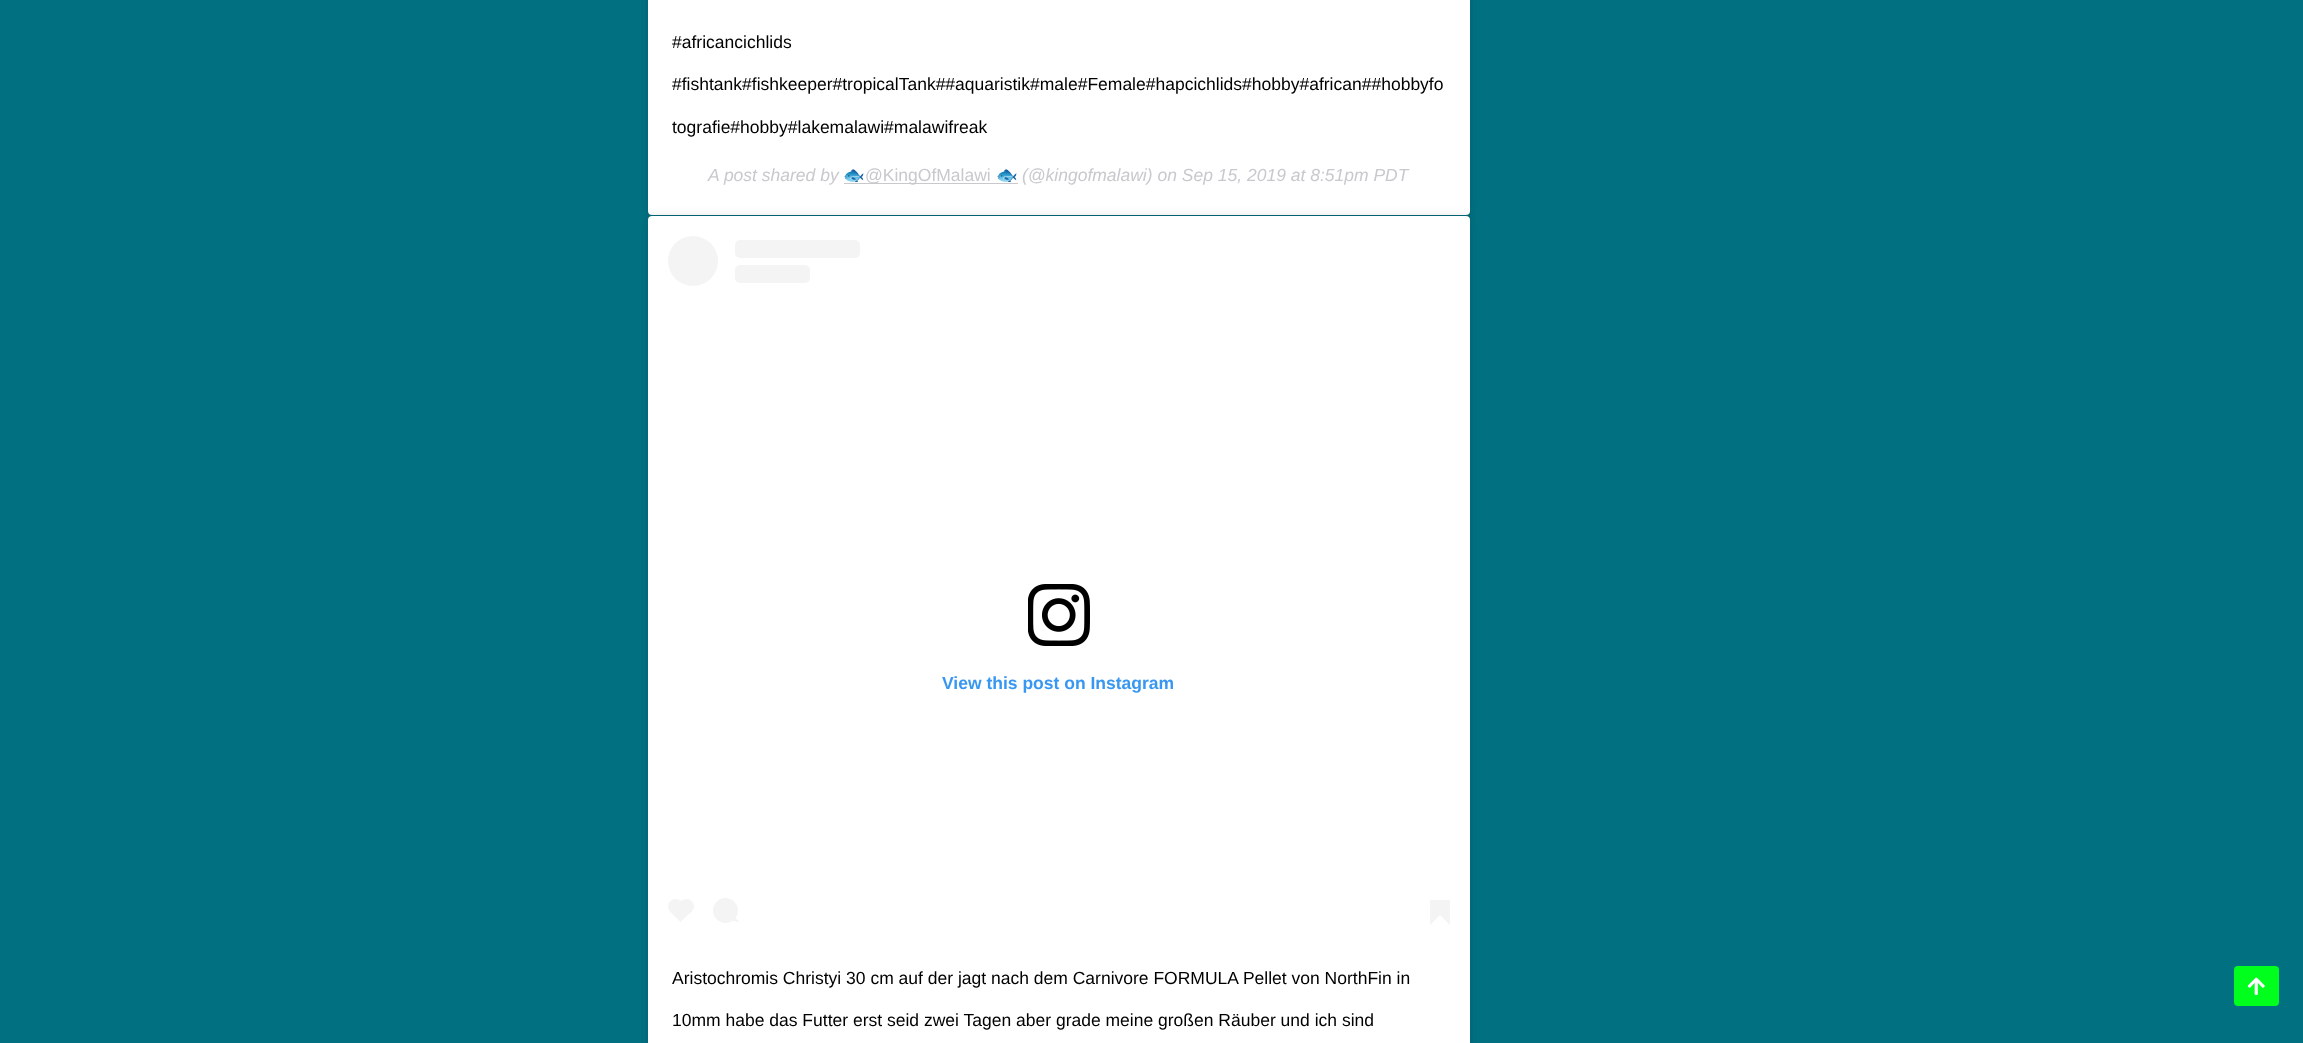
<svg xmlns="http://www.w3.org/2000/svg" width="2303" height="1043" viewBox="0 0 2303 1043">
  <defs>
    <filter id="blur1" x="-50%" y="-200%" width="200%" height="500%"><feGaussianBlur stdDeviation="6"/></filter>
    <filter id="blur2" x="-50%" y="-200%" width="200%" height="500%"><feGaussianBlur stdDeviation="0.5"/></filter>
  </defs>
  <rect width="100%" height="100%" fill="#017182"/>
  <rect x="648" y="-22" width="822" height="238" rx="4" fill="#000000" fill-opacity="0.15" filter="url(#blur1)"/>
  <rect x="648" y="-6" width="822" height="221" rx="4" fill="#000000" fill-opacity="0.5" filter="url(#blur2)"/>
  <rect x="648" y="-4" width="822" height="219" rx="4" fill="#ffffff"/>
  <text x="672" y="48" font-family="Liberation Sans" font-size="17.5" fill="#000000">#africancichlids</text>
  <text x="672" y="90" font-family="Liberation Sans" font-size="17.5" fill="#000000">#fishtank#fishkeeper#tropicalTank##aquaristik#male#Female#hapcichlids#hobby#african##hobbyfo</text>
  <text x="672" y="133" font-family="Liberation Sans" font-size="17.5" fill="#000000">tografie#hobby#lakemalawi#malawifreak</text>
  <text x="708" y="181" font-family="Liberation Sans" font-size="17.5" font-style="italic" fill="#c9c8cd">A post shared by</text>
  <rect x="844" y="183" width="174" height="1" fill="#c9c8cd"/>
  <text x="843" y="181" font-family="Noto Color Emoji" font-size="17.5" fill="#c9c8cd">🐟</text>
  <text x="865" y="181" font-family="Liberation Sans" font-size="17.5" fill="#c9c8cd">@KingOfMalawi</text>
  <text x="996" y="181" font-family="Noto Color Emoji" font-size="17.5" fill="#c9c8cd">🐟</text>
  <text x="1022" y="181" font-family="Liberation Sans" font-size="17.5" font-style="italic" fill="#c9c8cd">(@kingofmalawi) on Sep 15, 2019 at 8:51pm PDT</text>
  <rect x="648" y="218" width="822" height="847" rx="4" fill="#000000" fill-opacity="0.15" filter="url(#blur1)"/>
  <rect x="648" y="216" width="822" height="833" rx="4" fill="#000000" fill-opacity="0.5" filter="url(#blur2)"/>
  <rect x="648" y="216" width="822" height="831" rx="4" fill="#ffffff"/>
  <circle cx="693" cy="261" r="25" fill="#f4f4f4"/>
  <rect x="735" y="240" width="125" height="18" rx="5" fill="#f4f4f4"/>
  <rect x="735" y="265" width="75" height="18" rx="5" fill="#f4f4f4"/>
  <image x="1028" y="584" width="62" height="62" href="img1.png"/>
  <text x="942" y="689" font-family="Liberation Sans" font-size="17.5" font-weight="bold" fill="#3897f0">View this post on Instagram</text>
  <circle cx="675.5" cy="906.5" r="7.5" fill="#f4f4f4"/>
  <path d="M669.5 911L680.5 900L692 911L680.5 922Z" fill="#f4f4f4"/>
  <circle cx="686.5" cy="906.5" r="7.5" fill="#f4f4f4"/>
  <circle cx="725.5" cy="910.5" r="12.5" fill="#f4f4f4"/>
  <path d="M732 920.5L734.5 916.5L739.5 922.5Z" fill="#f4f4f4"/>
  <rect x="1430" y="900" width="20" height="15" fill="#f4f4f4"/>
  <path d="M1430 915H1440L1430 925Z" fill="#f4f4f4"/>
  <path d="M1440 915H1450V925Z" fill="#f4f4f4"/>
  <text x="672" y="984" font-family="Liberation Sans" font-size="17.5" fill="#000000">Aristochromis Christyi 30 cm auf der jagt nach dem Carnivore FORMULA Pellet von NorthFin in</text>
  <text x="672" y="1026" font-family="Liberation Sans" font-size="17.5" fill="#000000">10mm habe das Futter erst seid zwei Tagen aber grade meine großen Räuber und ich sind</text>
  <rect x="2234" y="966" width="45" height="40" rx="4" fill="#00ff1d"/>
  <image x="2247" y="977" width="18" height="18" href="img2.png"/>
</svg>
